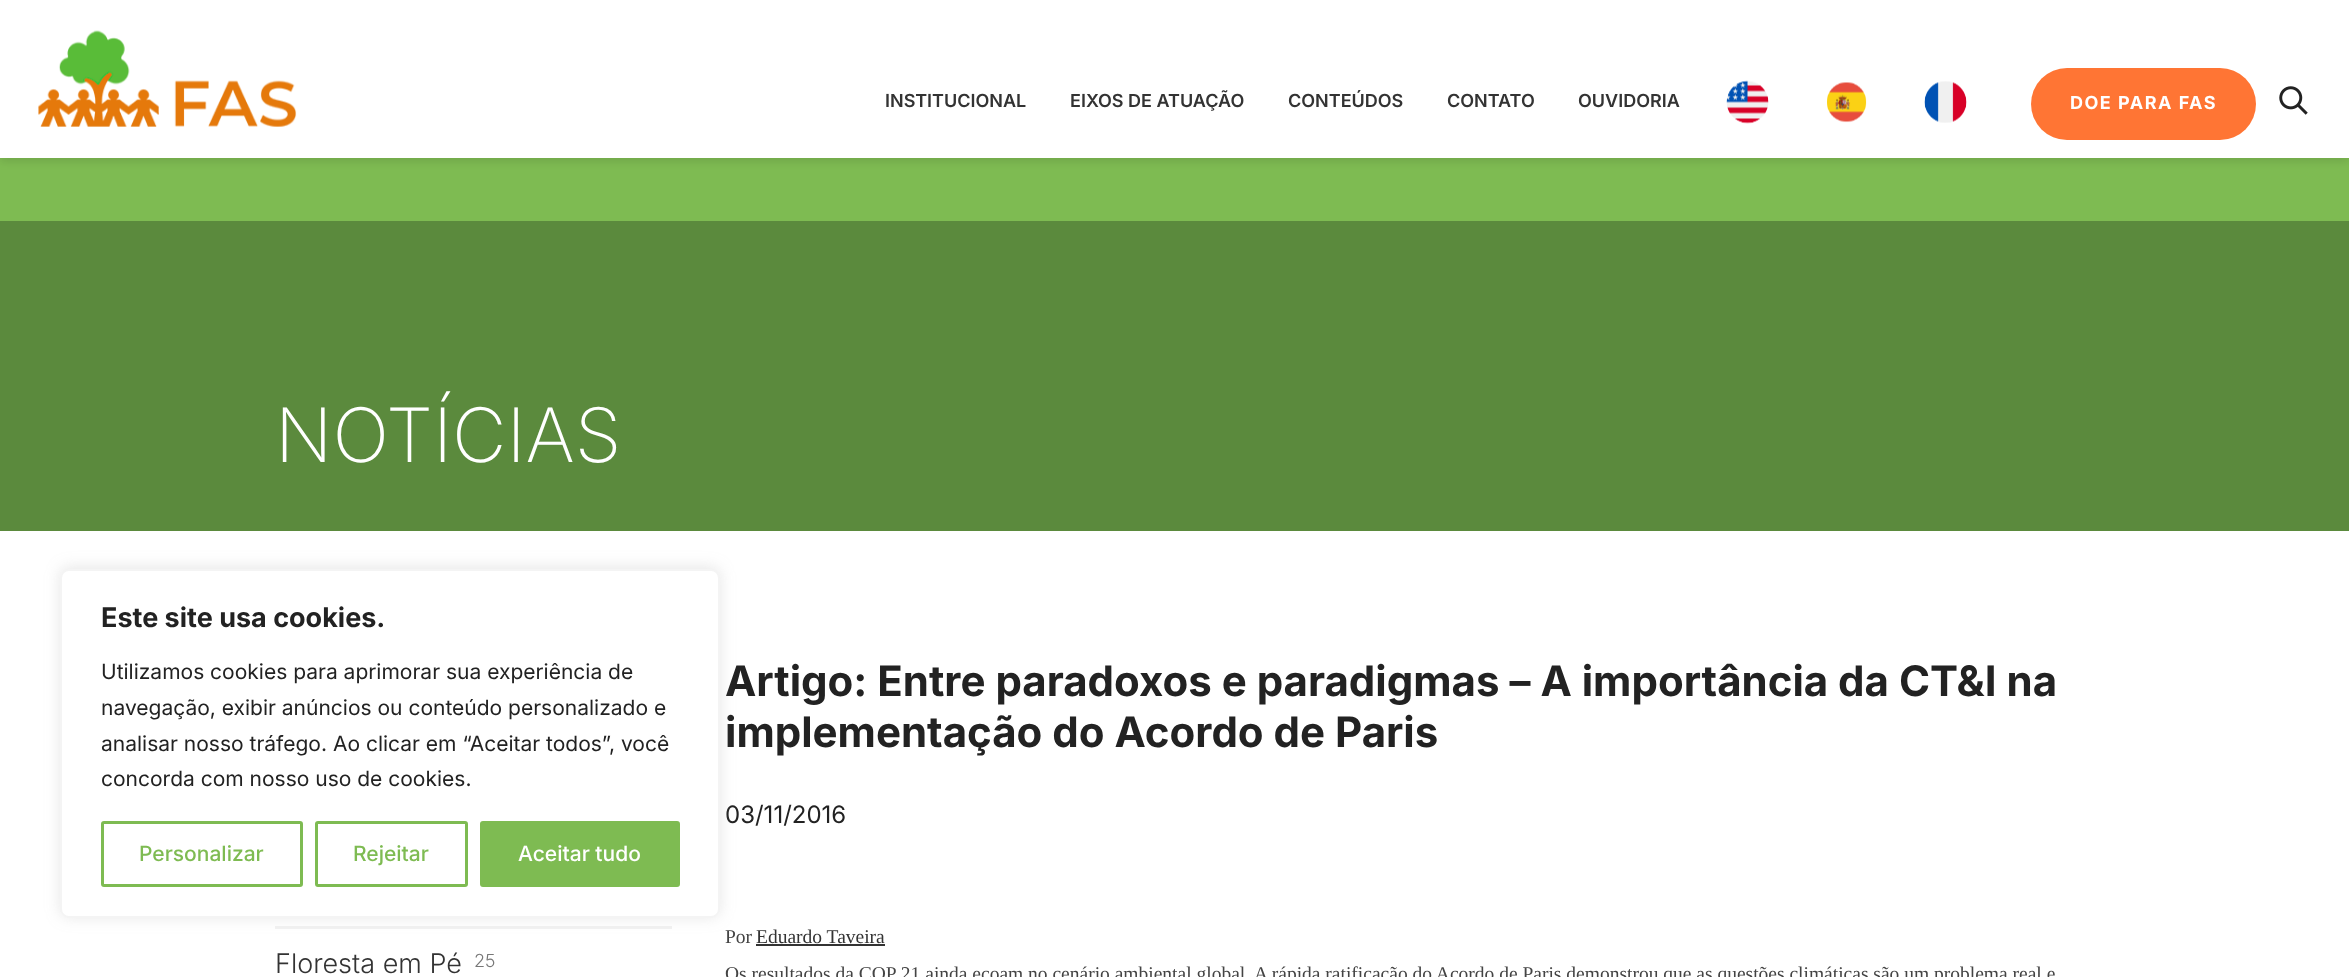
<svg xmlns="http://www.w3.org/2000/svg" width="2349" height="977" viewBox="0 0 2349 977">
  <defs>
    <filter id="blur1" x="-50%" y="-200%" width="200%" height="500%"><feGaussianBlur stdDeviation="4"/></filter>
    <filter id="blur2" x="-50%" y="-200%" width="200%" height="500%"><feGaussianBlur stdDeviation="7.5"/></filter>
  </defs>
  <rect width="100%" height="100%" fill="#ffffff"/>
  <rect x="0" y="158" width="2349" height="63" fill="#7ebb52"/>
  <rect x="0" y="5" width="2349" height="157" fill="#000000" fill-opacity="0.1" filter="url(#blur1)"/>
  <rect x="0" y="0" width="2349" height="158" fill="#ffffff"/>
  <image x="38" y="30" width="259" height="97" href="img1.png"/>
  <text x="885" y="107" font-family="Inter" font-size="18" font-weight="600" fill="#333333">INSTITUCIONAL</text>
  <text x="1070" y="107" font-family="Inter" font-size="18" font-weight="600" fill="#333333">EIXOS DE ATUAÇÃO</text>
  <text x="1288" y="107" font-family="Inter" font-size="18" font-weight="600" fill="#333333">CONTEÚDOS</text>
  <text x="1447" y="107" font-family="Inter" font-size="18" font-weight="600" fill="#333333">CONTATO</text>
  <text x="1578" y="107" font-family="Inter" font-size="18" font-weight="600" fill="#333333">OUVIDORIA</text>
  <image x="1726" y="80" width="43" height="44" href="img2.png"/>
  <image x="1827" y="82" width="40" height="41" href="img3.png"/>
  <image x="1924" y="81" width="43" height="42" href="img4.png"/>
  <rect x="2031" y="68" width="225" height="72" rx="36" fill="#ff7534"/>
  <text x="2070" y="109" font-family="Inter" font-size="18" font-weight="bold" letter-spacing="1.5" fill="#ffffff">DOE PARA FAS</text>
  <image x="2279" y="86" width="29" height="29" href="img5.png"/>
  <rect x="0" y="221" width="2349" height="310" fill="#5b8a3d"/>
  <text x="275" y="462" font-family="Inter" font-size="75" font-weight="200" fill="#ffffff">NOTÍCIAS</text>
  <rect x="275" y="926" width="397" height="3" fill="#f2f2f2"/>
  <text x="275" y="973" font-family="Inter" font-size="27" font-weight="300" fill="#333333">Floresta em Pé</text>
  <text x="474" y="967" font-family="Inter" font-size="18" font-weight="300" fill="#777777">25</text>
  <text x="725" y="696" font-family="Inter" font-size="42" font-weight="bold" fill="#222222">Artigo: Entre paradoxos e paradigmas – A importância da CT&amp;I na</text>
  <text x="725" y="747" font-family="Inter" font-size="42" font-weight="bold" fill="#222222">implementação do Acordo de Paris</text>
  <text x="725" y="823" font-family="Inter" font-size="24" fill="#222222">03/11/2016</text>
  <text x="725" y="943" font-family="Liberation Serif" font-size="19.5" fill="#444444">Por</text>
  <text x="756" y="943" font-family="Liberation Serif" font-size="19.5" fill="#333333">Eduardo Taveira</text>
  <rect x="756" y="944" width="129" height="2" fill="#333333"/>
  <text x="725" y="980" font-family="Liberation Serif" font-size="19.5" fill="#444444">Os resultados da COP 21 ainda ecoam no cenário ambiental global. A rápida ratificação do Acordo de Paris demonstrou que as questões climáticas são um problema real e</text>
  <rect x="60" y="567" width="660" height="350" rx="9" fill="#acabab" fill-opacity="0.3" filter="url(#blur2)"/>
  <rect x="61" y="570" width="658" height="347" rx="8" fill="#ffffff" stroke="#f4f4f4" stroke-width="2"/>
  <text x="101" y="627" font-family="Inter" font-size="27" font-weight="bold" fill="#222222">Este site usa cookies.</text>
  <text x="101" y="679" font-family="Inter" font-size="21" fill="#222222">Utilizamos cookies para aprimorar sua experiência de</text>
  <text x="101" y="715" font-family="Inter" font-size="21" fill="#222222">navegação, exibir anúncios ou conteúdo personalizado e</text>
  <text x="101" y="751" font-family="Inter" font-size="21" fill="#222222">analisar nosso tráfego. Ao clicar em “Aceitar todos”, você</text>
  <text x="101" y="786" font-family="Inter" font-size="21" fill="#222222">concorda com nosso uso de cookies.</text>
  <rect x="102.5" y="822.5" width="199" height="63" rx="1.5" fill="none" stroke="#7ebb52" stroke-width="3"/>
  <text x="139" y="861" font-family="Inter" font-size="21" font-weight="500" fill="#7ebb52">Personalizar</text>
  <rect x="316.5" y="822.5" width="150" height="63" rx="1.5" fill="none" stroke="#7ebb52" stroke-width="3"/>
  <text x="353" y="861" font-family="Inter" font-size="21" font-weight="500" fill="#7ebb52">Rejeitar</text>
  <rect x="481.5" y="822.5" width="197" height="63" rx="1.5" fill="#7ebb52" stroke="#7ebb52" stroke-width="3"/>
  <text x="518" y="861" font-family="Inter" font-size="21" font-weight="500" fill="#ffffff">Aceitar tudo</text>
</svg>
